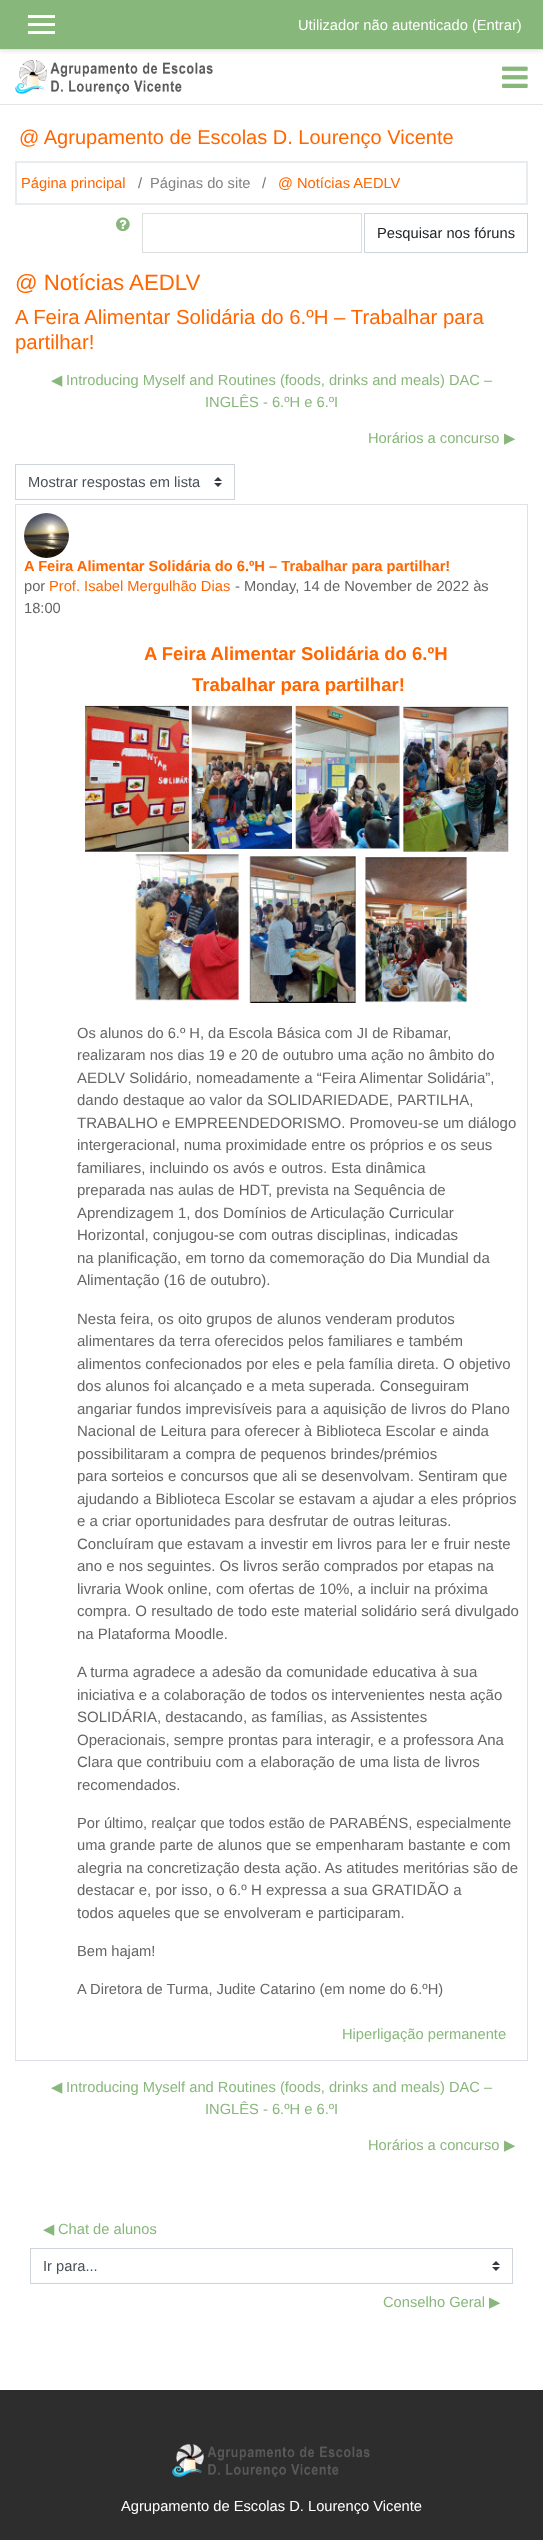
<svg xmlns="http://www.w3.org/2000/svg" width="543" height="2540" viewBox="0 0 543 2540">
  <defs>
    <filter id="blur1" x="-50%" y="-200%" width="200%" height="500%"><feGaussianBlur stdDeviation="2"/></filter>
  </defs>
  <rect width="100%" height="100%" fill="#ffffff"/>
  <rect x="0" y="2" width="543" height="50" fill="#000000" fill-opacity="0.08" filter="url(#blur1)"/>
  <rect x="0" y="0" width="543" height="49" fill="#88b77b"/>
  <rect x="0" y="49" width="543" height="1" fill="#e8e3e3"/>
  <rect x="28" y="15" width="27" height="3" fill="#ffffff"/>
  <rect x="28" y="23" width="27" height="3" fill="#ffffff"/>
  <rect x="28" y="31" width="27" height="3" fill="#ffffff"/>
  <text x="298" y="30" font-family="Liberation Sans" font-size="14.7" fill="#ffffff">Utilizador não autenticado (Entrar)</text>
  <rect x="0" y="104" width="543" height="1" fill="#e8e3e3"/>
  <image x="15" y="60" width="198" height="34" href="img1.png"/>
  <image x="502" y="66" width="26" height="22" href="img2.png"/>
  <text x="19" y="144" font-family="Liberation Sans" font-size="20" fill="#ff6600">@ Agrupamento de Escolas D. Lourenço Vicente</text>
  <rect x="16" y="162" width="511" height="42" fill="none" stroke="#e9ecef" stroke-width="2"/>
  <text x="21" y="188" font-family="Liberation Sans" font-size="14.7" fill="#ff6600">Página principal</text>
  <text x="138" y="188" font-family="Liberation Sans" font-size="14.7" fill="#6c757d">/</text>
  <text x="150" y="188" font-family="Liberation Sans" font-size="14.7" fill="#828282">Páginas do site</text>
  <text x="262" y="188" font-family="Liberation Sans" font-size="14.7" fill="#6c757d">/</text>
  <text x="278" y="188" font-family="Liberation Sans" font-size="14.7" fill="#ff6600">@ Notícias AEDLV</text>
  <image x="116" y="217" width="14" height="15" href="img3.png"/>
  <rect x="142.5" y="213.5" width="219" height="39" fill="none" stroke="#dedede"/>
  <rect x="364.5" y="213.5" width="163" height="39" fill="none" stroke="#ced4da"/>
  <text x="377" y="238" font-family="Liberation Sans" font-size="14.7" fill="#212529">Pesquisar nos fóruns</text>
  <text x="15" y="290" font-family="Liberation Sans" font-size="22.25" fill="#ff6600">@ Notícias AEDLV</text>
  <text x="15" y="324" font-family="Liberation Sans" font-size="20.4" fill="#ff6600">A Feira Alimentar Solidária do 6.ºH – Trabalhar para</text>
  <text x="15" y="349" font-family="Liberation Sans" font-size="20.4" fill="#ff6600">partilhar!</text>
  <text x="51" y="385" font-family="DejaVu Sans" font-size="14.7" fill="#88b77b">◀︎</text>
  <text x="66" y="385" font-family="Liberation Sans" font-size="14.7" fill="#88b77b">Introducing Myself and Routines (foods, drinks and meals) DAC –</text>
  <text x="205" y="407" font-family="Liberation Sans" font-size="14.7" fill="#88b77b">INGLÊS - 6.ºH e 6.ºI</text>
  <text x="368" y="443" font-family="Liberation Sans" font-size="14.7" fill="#88b77b">Horários a concurso</text>
  <text x="504" y="443" font-family="DejaVu Sans" font-size="14.7" fill="#88b77b">▶︎</text>
  <image x="214" y="477" width="8" height="10" href="img4.png"/>
  <rect x="15.5" y="464.5" width="219" height="35" fill="none" stroke="#ced4da"/>
  <text x="28" y="487" font-family="Liberation Sans" font-size="14.7" fill="#495057">Mostrar respostas em lista</text>
  <rect x="15.5" y="504.5" width="512" height="1556" fill="none" stroke="#dee2e6"/>
  <image x="24" y="513" width="45" height="45" href="img5.png"/>
  <text x="24" y="571" font-family="Liberation Sans" font-size="14.7" font-weight="bold" fill="#ff6600">A Feira Alimentar Solidária do 6.ºH – Trabalhar para partilhar!</text>
  <text x="24" y="591" font-family="Liberation Sans" font-size="14.7" fill="#656565">por</text>
  <text x="49" y="591" font-family="Liberation Sans" font-size="14.7" fill="#ff6600">Prof. Isabel Mergulhão Dias</text>
  <text x="235" y="591" font-family="Liberation Sans" font-size="14.7" fill="#656565">- Monday, 14 de November de 2022 às</text>
  <text x="24" y="613" font-family="Liberation Sans" font-size="14.7" fill="#656565">18:00</text>
  <text x="144" y="660" font-family="Liberation Sans" font-size="18.5" font-weight="bold" fill="#ff6600">A Feira Alimentar Solidária do 6.ºH</text>
  <text x="192" y="691" font-family="Liberation Sans" font-size="18.5" font-weight="bold" fill="#ff6600">Trabalhar para partilhar!</text>
  <image x="85" y="705" width="424" height="298" href="img6.png"/>
  <text x="77" y="1038" font-family="Liberation Sans" font-size="14.7" fill="#656565">Os alunos do 6.º H, da Escola Básica com JI de Ribamar,</text>
  <text x="77" y="1060" font-family="Liberation Sans" font-size="14.7" fill="#656565">realizaram nos dias 19 e</text>
  <text x="241" y="1060" font-family="Liberation Sans" font-size="15" fill="#656565">20 de outubro uma ação no âmbito do</text>
  <text x="77" y="1083" font-family="Liberation Sans" font-size="15" fill="#656565">AEDLV Solidário, nomeadamente a “Feira Alimentar Solidária”,</text>
  <text x="77" y="1105" font-family="Liberation Sans" font-size="15" fill="#656565">dando destaque ao valor da SOLIDARIEDADE, PARTILHA,</text>
  <text x="77" y="1128" font-family="Liberation Sans" font-size="15" fill="#656565">TRABALHO e EMPREENDEDORISMO. Promoveu-se um diálogo</text>
  <text x="77" y="1150" font-family="Liberation Sans" font-size="15" fill="#656565">intergeracional, numa proximidade entre os próprios e os seus</text>
  <text x="77" y="1173" font-family="Liberation Sans" font-size="15" fill="#656565">familiares, incluindo os avós e outros. Esta dinâmica</text>
  <text x="77" y="1195" font-family="Liberation Sans" font-size="15" fill="#656565">preparada nas aulas de HDT, prevista na Sequência de</text>
  <text x="77" y="1218" font-family="Liberation Sans" font-size="15" fill="#656565">Aprendizagem 1, dos Domínios de Articulação Curricular</text>
  <text x="77" y="1240" font-family="Liberation Sans" font-size="15" fill="#656565">Horizontal, conjugou-se com outras disciplinas, indicadas</text>
  <text x="77" y="1263" font-family="Liberation Sans" font-size="15" fill="#656565">na planificação, em torno da comemoração do Dia Mundial da</text>
  <text x="77" y="1285" font-family="Liberation Sans" font-size="15" fill="#656565">Alimentação (16 de outubro).</text>
  <text x="77" y="1324" font-family="Liberation Sans" font-size="15" fill="#656565">Nesta feira, os oito grupos de alunos venderam produtos</text>
  <text x="77" y="1346" font-family="Liberation Sans" font-size="15" fill="#656565">alimentares da terra oferecidos pelos familiares e também</text>
  <text x="77" y="1369" font-family="Liberation Sans" font-size="15" fill="#656565">alimentos confecionados por eles e pela família direta. O objetivo</text>
  <text x="77" y="1391" font-family="Liberation Sans" font-size="15" fill="#656565">dos alunos foi alcançado e a meta superada. Conseguiram</text>
  <text x="77" y="1414" font-family="Liberation Sans" font-size="15" fill="#656565">angariar fundos imprevisíveis para a aquisição de livros do Plano</text>
  <text x="77" y="1436" font-family="Liberation Sans" font-size="15" fill="#656565">Nacional de Leitura para oferecer à Biblioteca Escolar e ainda</text>
  <text x="77" y="1459" font-family="Liberation Sans" font-size="15" fill="#656565">possibilitaram a compra de pequenos brindes/prémios</text>
  <text x="77" y="1481" font-family="Liberation Sans" font-size="15" fill="#656565">para sorteios e concursos que ali se desenvolvam. Sentiram que</text>
  <text x="77" y="1504" font-family="Liberation Sans" font-size="15" fill="#656565">ajudando a Biblioteca Escolar se estavam a ajudar a eles próprios</text>
  <text x="77" y="1526" font-family="Liberation Sans" font-size="15" fill="#656565">e a criar oportunidades para desfrutar de outras leituras.</text>
  <text x="77" y="1549" font-family="Liberation Sans" font-size="15" fill="#656565">Concluíram que estavam a investir em livros para ler e fruir neste</text>
  <text x="77" y="1571" font-family="Liberation Sans" font-size="15" fill="#656565">ano e nos seguintes. Os livros serão comprados por etapas na</text>
  <text x="77" y="1594" font-family="Liberation Sans" font-size="15" fill="#656565">livraria Wook online, com ofertas de 10%, a incluir na próxima</text>
  <text x="77" y="1616" font-family="Liberation Sans" font-size="15" fill="#656565">compra. O resultado de todo este material solidário será divulgado</text>
  <text x="77" y="1639" font-family="Liberation Sans" font-size="15" fill="#656565">na Plataforma Moodle.</text>
  <text x="77" y="1677" font-family="Liberation Sans" font-size="15" fill="#656565">A turma agradece a adesão da comunidade educativa à sua</text>
  <text x="77" y="1700" font-family="Liberation Sans" font-size="15" fill="#656565">iniciativa e a colaboração de todos os intervenientes nesta ação</text>
  <text x="77" y="1722" font-family="Liberation Sans" font-size="15" fill="#656565">SOLIDÁRIA, destacando, as famílias, as Assistentes</text>
  <text x="77" y="1745" font-family="Liberation Sans" font-size="15" fill="#656565">Operacionais, sempre prontas para interagir, e a professora Ana</text>
  <text x="77" y="1767" font-family="Liberation Sans" font-size="15" fill="#656565">Clara que contribuiu com a elaboração de uma lista de livros</text>
  <text x="77" y="1790" font-family="Liberation Sans" font-size="15" fill="#656565">recomendados.</text>
  <text x="77" y="1828" font-family="Liberation Sans" font-size="14.7" fill="#656565">Por último, realçar que todos estão de PARABÉNS, especialmente</text>
  <text x="77" y="1850" font-family="Liberation Sans" font-size="14.7" fill="#656565">uma grande parte</text>
  <text x="197" y="1850" font-family="Liberation Sans" font-size="15" fill="#656565">de alunos que se empenharam bastante e com</text>
  <text x="77" y="1873" font-family="Liberation Sans" font-size="15" fill="#656565">alegria na concretização desta ação. As atitudes meritórias são de</text>
  <text x="77" y="1895" font-family="Liberation Sans" font-size="15" fill="#656565">destacar e, por isso, o 6.º H expressa a sua GRATIDÃO a</text>
  <text x="77" y="1918" font-family="Liberation Sans" font-size="15" fill="#656565">todos aqueles que se envolveram e participaram.</text>
  <text x="77" y="1956" font-family="Liberation Sans" font-size="14.7" fill="#656565">Bem hajam!</text>
  <text x="77" y="1994" font-family="Liberation Sans" font-size="14.7" fill="#656565">A Diretora de Turma, Judite Catarino (em nome do 6.ºH)</text>
  <text x="342" y="2039" font-family="Liberation Sans" font-size="14.7" fill="#88b77b">Hiperligação permanente</text>
  <text x="51" y="2092" font-family="DejaVu Sans" font-size="14.7" fill="#88b77b">◀︎</text>
  <text x="66" y="2092" font-family="Liberation Sans" font-size="14.7" fill="#88b77b">Introducing Myself and Routines (foods, drinks and meals) DAC –</text>
  <text x="205" y="2114" font-family="Liberation Sans" font-size="14.7" fill="#88b77b">INGLÊS - 6.ºH e 6.ºI</text>
  <text x="368" y="2150" font-family="Liberation Sans" font-size="14.7" fill="#88b77b">Horários a concurso</text>
  <text x="504" y="2150" font-family="DejaVu Sans" font-size="14.7" fill="#88b77b">▶︎</text>
  <text x="43" y="2234" font-family="DejaVu Sans" font-size="14.7" fill="#88b77b">◀︎</text>
  <text x="58" y="2234" font-family="Liberation Sans" font-size="14.7" fill="#88b77b">Chat de alunos</text>
  <image x="492" y="2261" width="8" height="10" href="img4.png"/>
  <rect x="30.5" y="2248.5" width="482" height="35" fill="none" stroke="#ced4da"/>
  <text x="43" y="2271" font-family="Liberation Sans" font-size="14.7" fill="#495057">Ir para...</text>
  <text x="383" y="2307" font-family="Liberation Sans" font-size="14.7" fill="#88b77b">Conselho Geral</text>
  <text x="489" y="2307" font-family="DejaVu Sans" font-size="14.7" fill="#88b77b">▶︎</text>
  <rect x="0" y="2390" width="543" height="150" fill="#2d2d2d"/>
  <image x="172" y="2444" width="198" height="33" href="img7.png"/>
  <text x="121" y="2511" font-family="Liberation Sans" font-size="14.7" fill="#ffffff">Agrupamento de Escolas D. Lourenço Vicente</text>
</svg>
